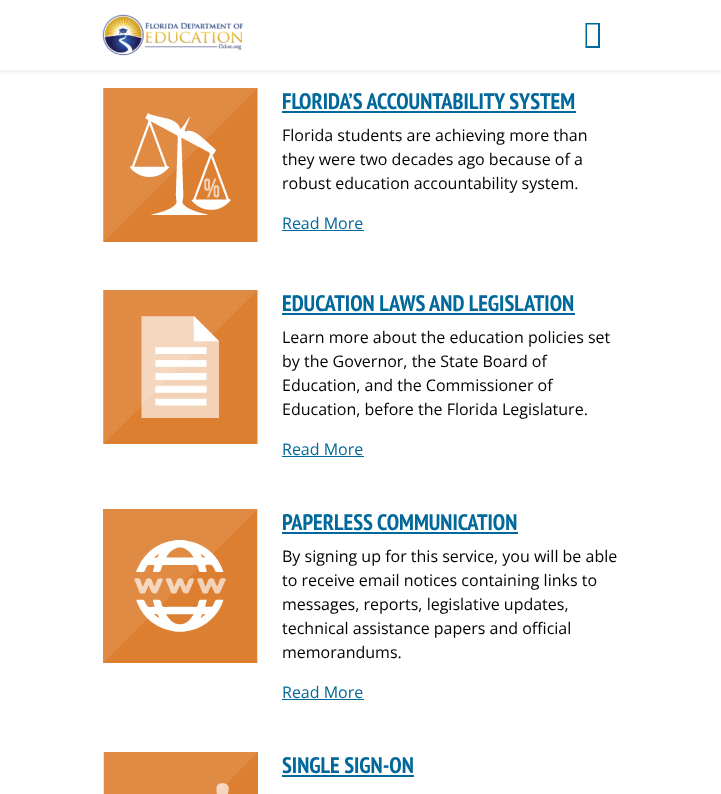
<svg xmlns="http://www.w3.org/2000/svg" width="721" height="794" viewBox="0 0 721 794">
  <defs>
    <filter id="blur1" x="-50%" y="-200%" width="200%" height="500%"><feGaussianBlur stdDeviation="2"/></filter>
  </defs>
  <rect width="100%" height="100%" fill="#ffffff"/>
  <rect x="0" y="2" width="721" height="70" fill="#000000" fill-opacity="0.07" filter="url(#blur1)"/>
  <rect x="0" y="0" width="721" height="70" fill="#ffffff"/>
  <image x="102" y="14" width="141" height="42" href="img1.png"/>
  <path d="M585.5 48V23H600V48ZM587 46H598V24.5H587Z" fill="#01689b"/>
  <image x="103" y="88" width="155" height="154" href="img2.png"/>
  <text x="282" y="109" font-family="PT Sans Narrow" font-size="22.4" font-weight="bold" fill="#01689b">FLORIDA’S ACCOUNTABILITY SYSTEM</text>
  <rect x="282" y="111" width="294" height="2" fill="#01689b"/>
  <text x="282" y="141" font-family="Open Sans" font-size="16" fill="#000000">Florida students are achieving more than</text>
  <text x="282" y="165" font-family="Open Sans" font-size="16" fill="#000000">they were two decades ago because of a</text>
  <text x="282" y="189" font-family="Open Sans" font-size="16" fill="#000000">robust education accountability system.</text>
  <text x="282" y="229" font-family="Open Sans" font-size="16" fill="#01689b">Read More</text>
  <rect x="282" y="230" width="82" height="1" fill="#01689b"/>
  <image x="103" y="290" width="155" height="154" href="img3.png"/>
  <text x="282" y="311" font-family="PT Sans Narrow" font-size="22.4" font-weight="bold" fill="#01689b">EDUCATION LAWS AND LEGISLATION</text>
  <rect x="282" y="313" width="293" height="2" fill="#01689b"/>
  <text x="282" y="343" font-family="Open Sans" font-size="16" fill="#000000">Learn more about the education policies set</text>
  <text x="282" y="367" font-family="Open Sans" font-size="16" fill="#000000">by the Governor, the State Board of</text>
  <text x="282" y="391" font-family="Open Sans" font-size="16" fill="#000000">Education, and the Commissioner of</text>
  <text x="282" y="415" font-family="Open Sans" font-size="16" fill="#000000">Education, before the Florida Legislature.</text>
  <text x="282" y="455" font-family="Open Sans" font-size="16" fill="#01689b">Read More</text>
  <rect x="282" y="456" width="82" height="1" fill="#01689b"/>
  <image x="103" y="509" width="155" height="154" href="img4.png"/>
  <text x="282" y="530" font-family="PT Sans Narrow" font-size="22.4" font-weight="bold" fill="#01689b">PAPERLESS COMMUNICATION</text>
  <rect x="282" y="532" width="236" height="2" fill="#01689b"/>
  <text x="282" y="562" font-family="Open Sans" font-size="16" fill="#000000">By signing up for this service, you will be able</text>
  <text x="282" y="586" font-family="Open Sans" font-size="16" fill="#000000">to receive email notices containing links to</text>
  <text x="282" y="610" font-family="Open Sans" font-size="16" fill="#000000">messages, reports, legislative updates,</text>
  <text x="282" y="634" font-family="Open Sans" font-size="16" fill="#000000">technical assistance papers and official</text>
  <text x="282" y="658" font-family="Open Sans" font-size="16" fill="#000000">memorandums.</text>
  <text x="282" y="698" font-family="Open Sans" font-size="16" fill="#01689b">Read More</text>
  <rect x="282" y="699" width="82" height="1" fill="#01689b"/>
  <image x="103" y="752" width="155" height="42" href="img5.png"/>
  <text x="282" y="773" font-family="PT Sans Narrow" font-size="22.4" font-weight="bold" fill="#01689b">SINGLE SIGN-ON</text>
  <rect x="282" y="775" width="132" height="2" fill="#01689b"/>
</svg>
